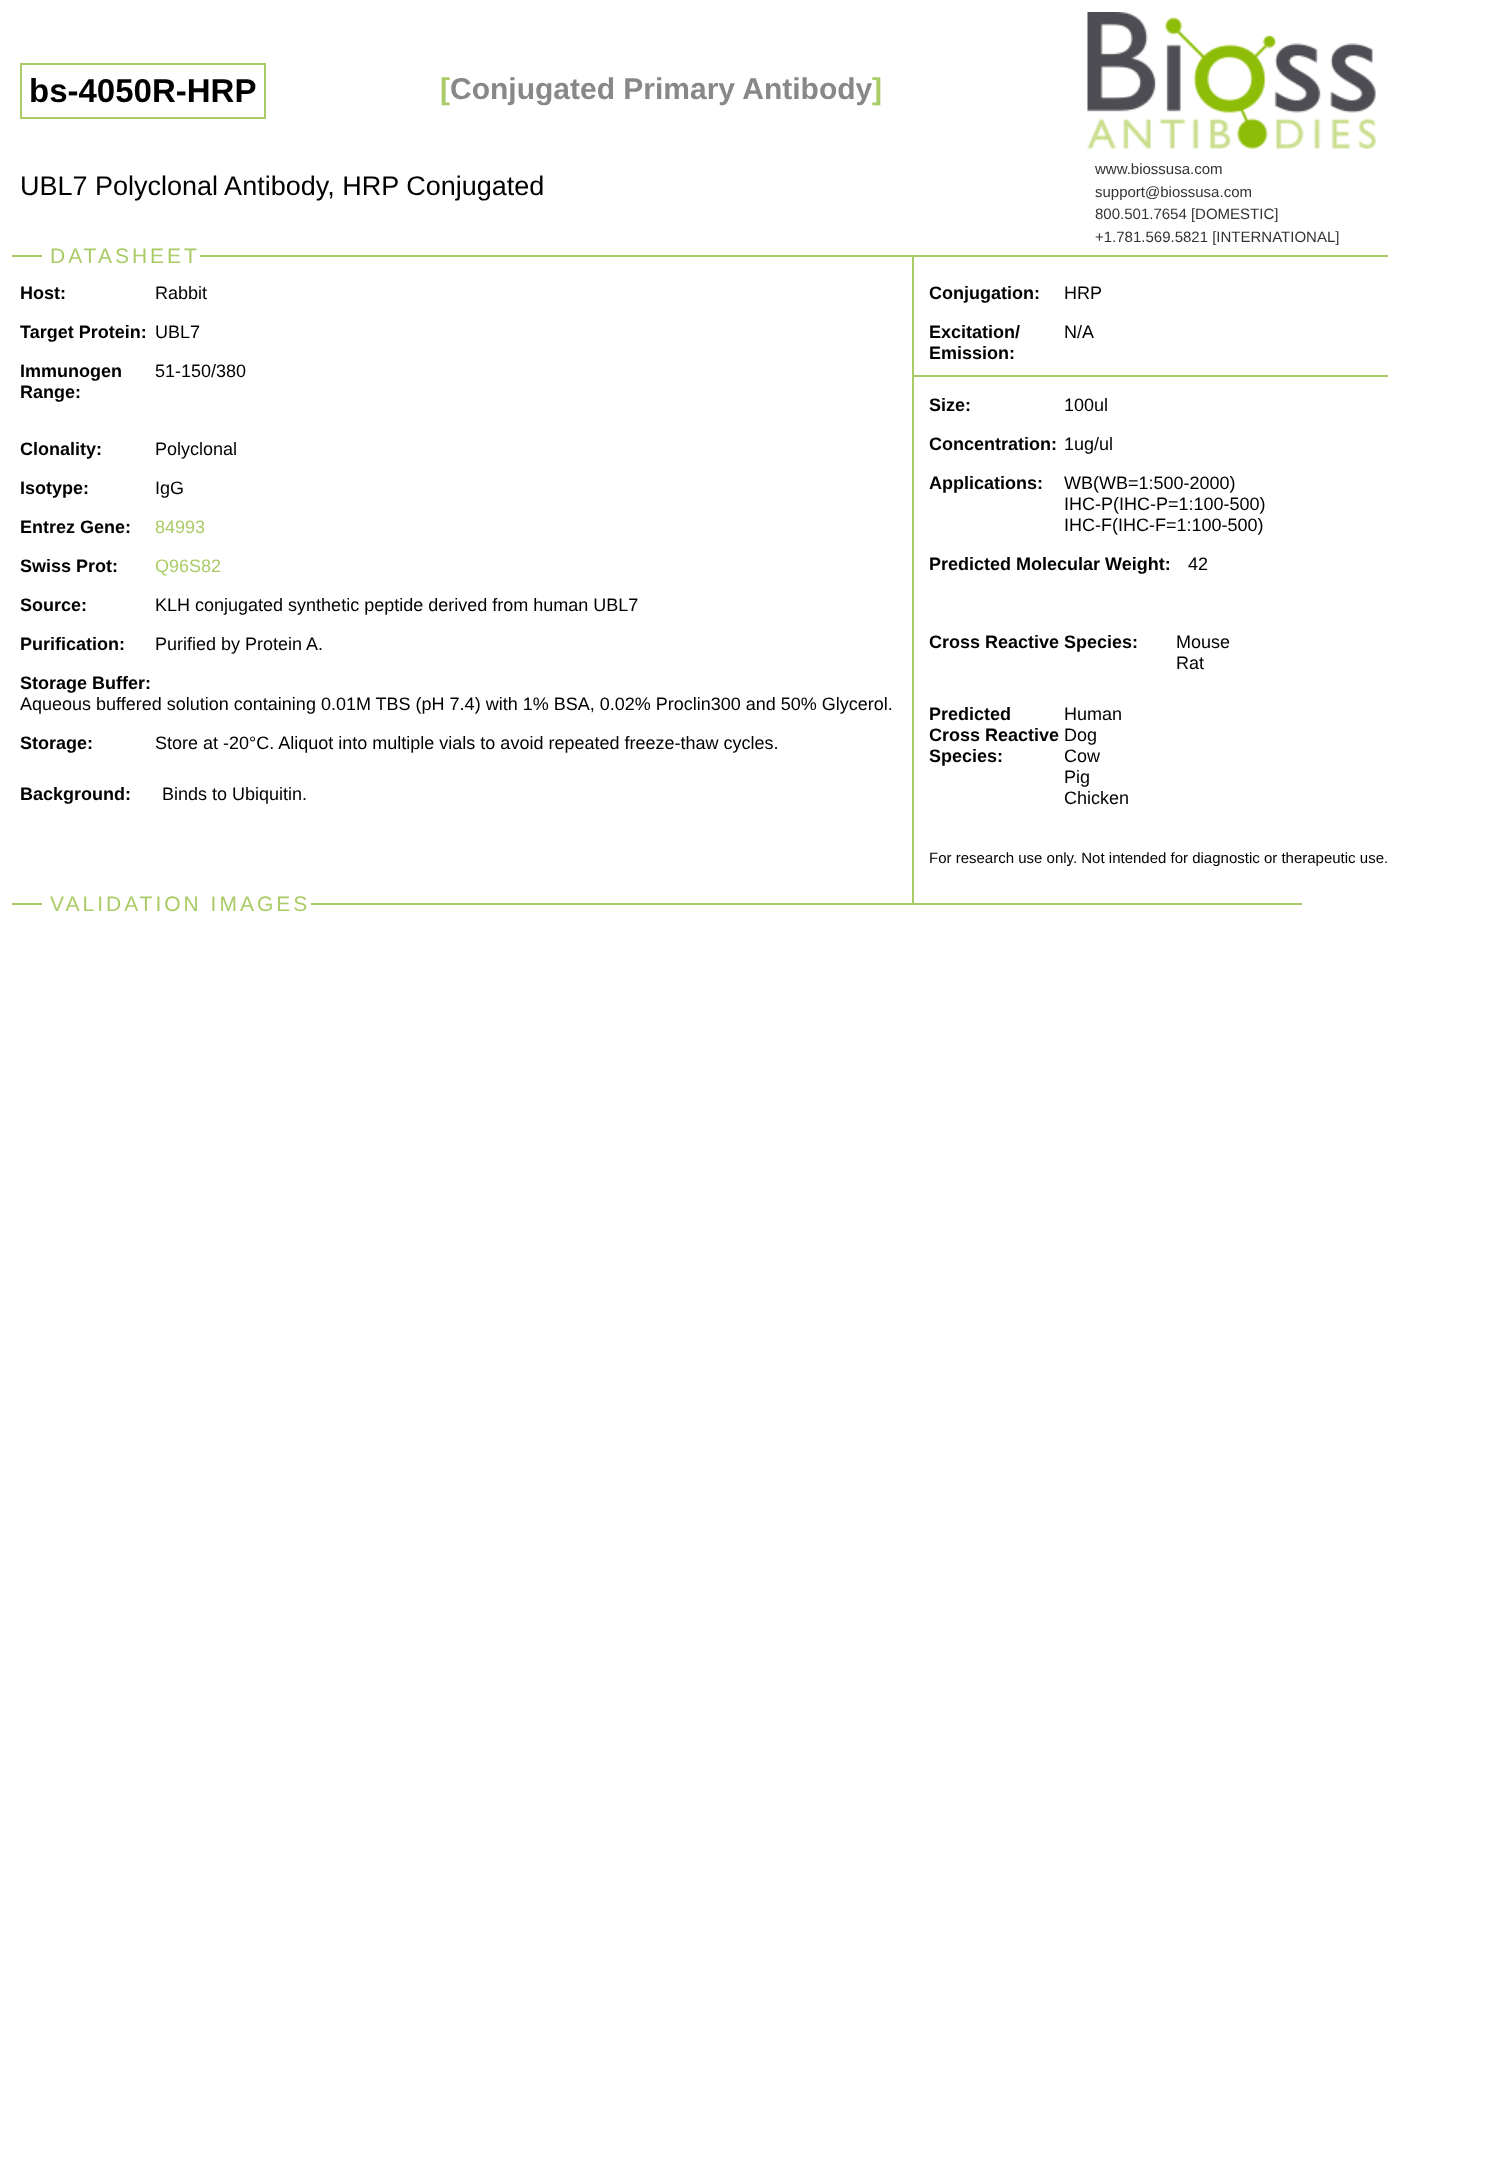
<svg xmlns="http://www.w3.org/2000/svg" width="1510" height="2158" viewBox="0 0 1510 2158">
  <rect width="100%" height="100%" fill="#ffffff"/>
  <rect x="12" y="255" width="1376" height="2" fill="#aacc66"/>
  <rect x="21" y="64" width="244" height="54" fill="none" stroke="#aacc66" stroke-width="2"/>
  <text x="29" y="102" font-family="Liberation Sans" font-size="33" font-weight="bold" fill="#000000">bs-4050R-HRP</text>
  <text x="440" y="99" font-family="Liberation Sans" font-size="30" font-weight="bold" fill="#aacc66">[</text>
  <text x="450" y="99" font-family="Liberation Sans" font-size="30" font-weight="bold" fill="#888888">Conjugated Primary Antibody</text>
  <text x="872" y="99" font-family="Liberation Sans" font-size="30" font-weight="bold" fill="#aacc66">]</text>
  <text x="20" y="195" font-family="Liberation Sans" font-size="27" fill="#000000">UBL7 Polyclonal Antibody, HRP Conjugated</text>
  <image x="1087" y="12" width="289" height="137" href="img1.png"/>
  <text x="1095" y="174" font-family="Liberation Sans" font-size="15" fill="#333333">www.biossusa.com</text>
  <text x="1095" y="197" font-family="Liberation Sans" font-size="15" fill="#333333">support@biossusa.com</text>
  <text x="1095" y="219" font-family="Liberation Sans" font-size="15" fill="#333333">800.501.7654 [DOMESTIC]</text>
  <text x="1095" y="242" font-family="Liberation Sans" font-size="15" fill="#333333">+1.781.569.5821 [INTERNATIONAL]</text>
  <rect x="42" y="255" width="158" height="2" fill="#ffffff"/>
  <text x="50" y="263" font-family="Liberation Sans" font-size="21" letter-spacing="3" fill="#aacc66">DATASHEET</text>
  <text x="20" y="299" font-family="Liberation Sans" font-size="18" font-weight="bold" fill="#000000">Host:</text>
  <text x="155" y="299" font-family="Liberation Sans" font-size="18" fill="#000000">Rabbit</text>
  <text x="20" y="338" font-family="Liberation Sans" font-size="18" font-weight="bold" fill="#000000">Target Protein:</text>
  <text x="155" y="338" font-family="Liberation Sans" font-size="18" fill="#000000">UBL7</text>
  <text x="20" y="377" font-family="Liberation Sans" font-size="18" font-weight="bold" fill="#000000">Immunogen</text>
  <text x="20" y="398" font-family="Liberation Sans" font-size="18" font-weight="bold" fill="#000000">Range:</text>
  <text x="155" y="377" font-family="Liberation Sans" font-size="18" fill="#000000">51-150/380</text>
  <text x="20" y="455" font-family="Liberation Sans" font-size="18" font-weight="bold" fill="#000000">Clonality:</text>
  <text x="155" y="455" font-family="Liberation Sans" font-size="18" fill="#000000">Polyclonal</text>
  <text x="20" y="494" font-family="Liberation Sans" font-size="18" font-weight="bold" fill="#000000">Isotype:</text>
  <text x="155" y="494" font-family="Liberation Sans" font-size="18" fill="#000000">IgG</text>
  <text x="20" y="533" font-family="Liberation Sans" font-size="18" font-weight="bold" fill="#000000">Entrez Gene:</text>
  <text x="155" y="533" font-family="Liberation Sans" font-size="18" fill="#aacc66">84993</text>
  <text x="20" y="572" font-family="Liberation Sans" font-size="18" font-weight="bold" fill="#000000">Swiss Prot:</text>
  <text x="155" y="572" font-family="Liberation Sans" font-size="18" fill="#aacc66">Q96S82</text>
  <text x="20" y="611" font-family="Liberation Sans" font-size="18" font-weight="bold" fill="#000000">Source:</text>
  <text x="155" y="611" font-family="Liberation Sans" font-size="18" fill="#000000">KLH conjugated synthetic peptide derived from human UBL7</text>
  <text x="20" y="650" font-family="Liberation Sans" font-size="18" font-weight="bold" fill="#000000">Purification:</text>
  <text x="155" y="650" font-family="Liberation Sans" font-size="18" fill="#000000">Purified by Protein A.</text>
  <text x="20" y="689" font-family="Liberation Sans" font-size="18" font-weight="bold" fill="#000000">Storage Buffer:</text>
  <text x="20" y="710" font-family="Liberation Sans" font-size="18" fill="#000000">Aqueous buffered solution containing 0.01M TBS (pH 7.4) with 1% BSA, 0.02% Proclin300 and 50% Glycerol.</text>
  <text x="20" y="749" font-family="Liberation Sans" font-size="18" font-weight="bold" fill="#000000">Storage:</text>
  <text x="155" y="749" font-family="Liberation Sans" font-size="18" fill="#000000">Store at -20°C. Aliquot into multiple vials to avoid repeated freeze-thaw cycles.</text>
  <text x="20" y="800" font-family="Liberation Sans" font-size="18" font-weight="bold" fill="#000000">Background:</text>
  <text x="162" y="800" font-family="Liberation Sans" font-size="18" fill="#000000">Binds to Ubiquitin.</text>
  <rect x="912" y="257" width="2" height="646" fill="#aacc66"/>
  <rect x="914" y="375" width="474" height="2" fill="#aacc66"/>
  <text x="929" y="299" font-family="Liberation Sans" font-size="18" font-weight="bold" fill="#000000">Conjugation:</text>
  <text x="1064" y="299" font-family="Liberation Sans" font-size="18" fill="#000000">HRP</text>
  <text x="929" y="338" font-family="Liberation Sans" font-size="18" font-weight="bold" fill="#000000">Excitation/</text>
  <text x="929" y="359" font-family="Liberation Sans" font-size="18" font-weight="bold" fill="#000000">Emission:</text>
  <text x="1064" y="338" font-family="Liberation Sans" font-size="18" fill="#000000">N/A</text>
  <text x="929" y="411" font-family="Liberation Sans" font-size="18" font-weight="bold" fill="#000000">Size:</text>
  <text x="1064" y="411" font-family="Liberation Sans" font-size="18" fill="#000000">100ul</text>
  <text x="929" y="450" font-family="Liberation Sans" font-size="18" font-weight="bold" fill="#000000">Concentration:</text>
  <text x="1064" y="450" font-family="Liberation Sans" font-size="18" fill="#000000">1ug/ul</text>
  <text x="929" y="489" font-family="Liberation Sans" font-size="18" font-weight="bold" fill="#000000">Applications:</text>
  <text x="1064" y="489" font-family="Liberation Sans" font-size="18" fill="#000000">WB(WB=1:500-2000)</text>
  <text x="1064" y="510" font-family="Liberation Sans" font-size="18" fill="#000000">IHC-P(IHC-P=1:100-500)</text>
  <text x="1064" y="531" font-family="Liberation Sans" font-size="18" fill="#000000">IHC-F(IHC-F=1:100-500)</text>
  <text x="929" y="570" font-family="Liberation Sans" font-size="18" font-weight="bold" fill="#000000">Predicted Molecular Weight:</text>
  <text x="1188" y="570" font-family="Liberation Sans" font-size="18" fill="#000000">42</text>
  <text x="929" y="648" font-family="Liberation Sans" font-size="18" font-weight="bold" fill="#000000">Cross Reactive Species:</text>
  <text x="1176" y="648" font-family="Liberation Sans" font-size="18" fill="#000000">Mouse</text>
  <text x="1176" y="669" font-family="Liberation Sans" font-size="18" fill="#000000">Rat</text>
  <text x="929" y="720" font-family="Liberation Sans" font-size="18" font-weight="bold" fill="#000000">Predicted</text>
  <text x="929" y="741" font-family="Liberation Sans" font-size="18" font-weight="bold" fill="#000000">Cross Reactive</text>
  <text x="929" y="762" font-family="Liberation Sans" font-size="18" font-weight="bold" fill="#000000">Species:</text>
  <text x="1064" y="720" font-family="Liberation Sans" font-size="18" fill="#000000">Human</text>
  <text x="1064" y="741" font-family="Liberation Sans" font-size="18" fill="#000000">Dog</text>
  <text x="1064" y="762" font-family="Liberation Sans" font-size="18" fill="#000000">Cow</text>
  <text x="1064" y="783" font-family="Liberation Sans" font-size="18" fill="#000000">Pig</text>
  <text x="1064" y="804" font-family="Liberation Sans" font-size="18" fill="#000000">Chicken</text>
  <text x="929" y="863" font-family="Liberation Sans" font-size="15" fill="#000000">For research use only. Not intended for diagnostic or therapeutic use.</text>
  <rect x="12" y="903" width="1290" height="2" fill="#aacc66"/>
  <rect x="42" y="903" width="269" height="2" fill="#ffffff"/>
  <text x="50" y="911" font-family="Liberation Sans" font-size="21" letter-spacing="3" fill="#aacc66">VALIDATION IMAGES</text>
</svg>
